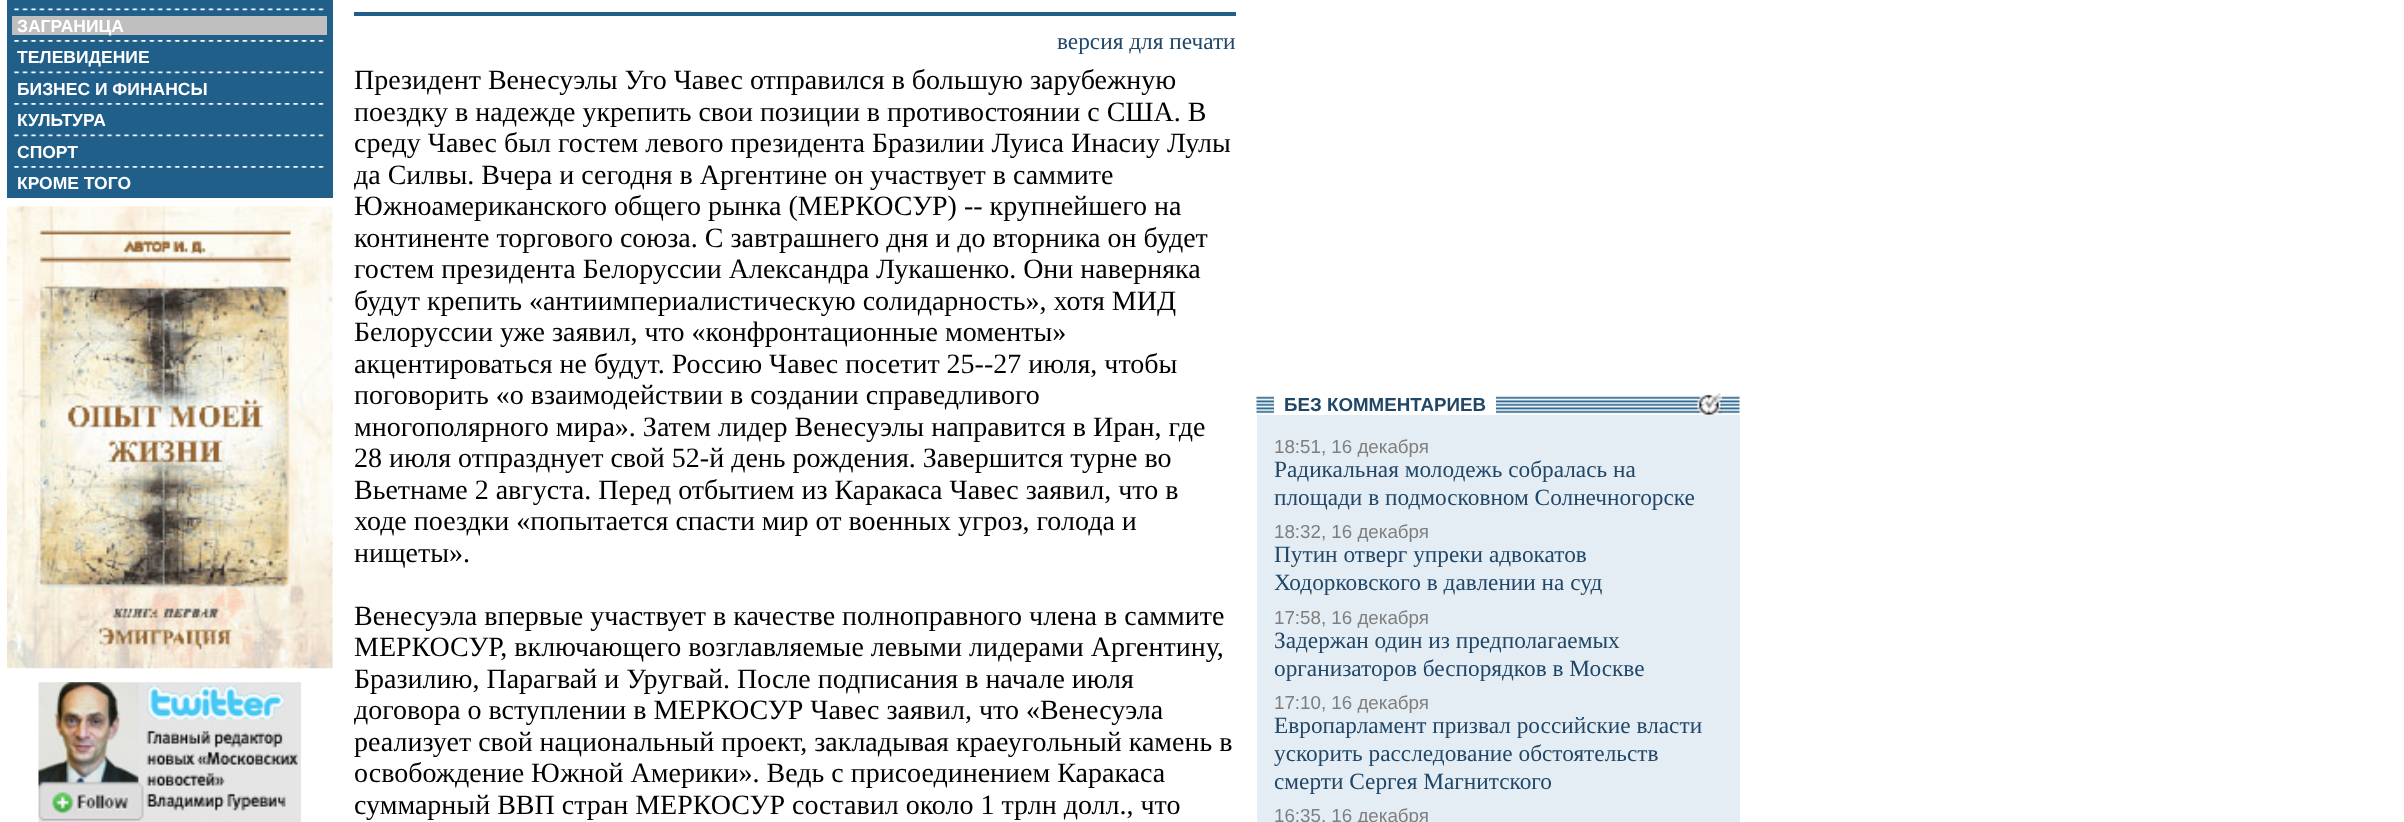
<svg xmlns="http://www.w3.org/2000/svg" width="2404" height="822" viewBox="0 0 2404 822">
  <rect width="100%" height="100%" fill="#ffffff"/>
  <rect x="7" y="0" width="326" height="198" fill="#205f8a"/>
  <image x="13" y="8" width="311" height="3" href="img1.png"/>
  <rect x="12" y="16" width="315" height="19" fill="#bfbfbf"/>
  <text x="17" y="32" font-family="Liberation Sans" font-size="17.5" font-weight="bold" fill="#ffffff">ЗАГРАНИЦА</text>
  <image x="13" y="40" width="311" height="2" href="img2.png"/>
  <text x="17" y="63" font-family="Liberation Sans" font-size="17.5" font-weight="bold" fill="#ffffff">ТЕЛЕВИДЕНИЕ</text>
  <image x="13" y="71" width="311" height="3" href="img1.png"/>
  <text x="17" y="95" font-family="Liberation Sans" font-size="17.5" font-weight="bold" fill="#ffffff">БИЗНЕС И ФИНАНСЫ</text>
  <image x="13" y="103" width="311" height="2" href="img2.png"/>
  <text x="17" y="126" font-family="Liberation Sans" font-size="17.5" font-weight="bold" fill="#ffffff">КУЛЬТУРА</text>
  <image x="13" y="134" width="311" height="3" href="img1.png"/>
  <text x="17" y="158" font-family="Liberation Sans" font-size="17.5" font-weight="bold" fill="#ffffff">СПОРТ</text>
  <image x="13" y="166" width="311" height="2" href="img2.png"/>
  <text x="17" y="189" font-family="Liberation Sans" font-size="17.5" font-weight="bold" fill="#ffffff">КРОМЕ ТОГО</text>
  <image x="7" y="206" width="326" height="463" href="img3.png"/>
  <image x="38" y="682" width="263" height="140" href="img4.png"/>
  <rect x="354" y="12" width="882" height="4" fill="#205f8a"/>
  <text x="1057" y="49" font-family="Liberation Serif" font-size="23.3" fill="#214768">версия для печати</text>
  <text x="354" y="89" font-family="Liberation Serif" font-size="28" fill="#000000">Президент Венесуэлы Уго Чавес отправился в большую зарубежную</text>
  <text x="354" y="121" font-family="Liberation Serif" font-size="28" fill="#000000">поездку в надежде укрепить свои позиции в противостоянии с США. В</text>
  <text x="354" y="152" font-family="Liberation Serif" font-size="28" fill="#000000">среду Чавес был гостем левого президента Бразилии Луиса Инасиу Лулы</text>
  <text x="354" y="184" font-family="Liberation Serif" font-size="28" fill="#000000">да Силвы. Вчера и сегодня в Аргентине он участвует в саммите</text>
  <text x="354" y="215" font-family="Liberation Serif" font-size="28" fill="#000000">Южноамериканского общего рынка (МЕРКОСУР) -- крупнейшего на</text>
  <text x="354" y="247" font-family="Liberation Serif" font-size="28" fill="#000000">континенте торгового союза. С завтрашнего дня и до вторника он будет</text>
  <text x="354" y="278" font-family="Liberation Serif" font-size="28" fill="#000000">гостем президента Белоруссии Александра Лукашенко. Они наверняка</text>
  <text x="354" y="310" font-family="Liberation Serif" font-size="28" fill="#000000">будут крепить «антиимпериалистическую солидарность», хотя МИД</text>
  <text x="354" y="341" font-family="Liberation Serif" font-size="28" fill="#000000">Белоруссии уже заявил, что «конфронтационные моменты»</text>
  <text x="354" y="373" font-family="Liberation Serif" font-size="28" fill="#000000">акцентироваться не будут. Россию Чавес посетит 25--27 июля, чтобы</text>
  <text x="354" y="404" font-family="Liberation Serif" font-size="28" fill="#000000">поговорить «о взаимодействии в создании справедливого</text>
  <text x="354" y="436" font-family="Liberation Serif" font-size="28" fill="#000000">многополярного мира». Затем лидер Венесуэлы направится в Иран, где</text>
  <text x="354" y="467" font-family="Liberation Serif" font-size="28" fill="#000000">28 июля отпразднует свой 52-й день рождения. Завершится турне во</text>
  <text x="354" y="499" font-family="Liberation Serif" font-size="28" fill="#000000">Вьетнаме 2 августа. Перед отбытием из Каракаса Чавес заявил, что в</text>
  <text x="354" y="530" font-family="Liberation Serif" font-size="28" fill="#000000">ходе поездки «попытается спасти мир от военных угроз, голода и</text>
  <text x="354" y="562" font-family="Liberation Serif" font-size="28" fill="#000000">нищеты».</text>
  <text x="354" y="625" font-family="Liberation Serif" font-size="28" fill="#000000">Венесуэла впервые участвует в качестве полноправного члена в саммите</text>
  <text x="354" y="656" font-family="Liberation Serif" font-size="28" fill="#000000">МЕРКОСУР, включающего возглавляемые левыми лидерами Аргентину,</text>
  <text x="354" y="688" font-family="Liberation Serif" font-size="28" fill="#000000">Бразилию, Парагвай и Уругвай. После подписания в начале июля</text>
  <text x="354" y="719" font-family="Liberation Serif" font-size="28" fill="#000000">договора о вступлении в МЕРКОСУР Чавес заявил, что «Венесуэла</text>
  <text x="354" y="751" font-family="Liberation Serif" font-size="28" fill="#000000">реализует свой национальный проект, закладывая краеугольный камень в</text>
  <text x="354" y="782" font-family="Liberation Serif" font-size="28" fill="#000000">освобождение Южной Америки». Ведь с присоединением Каракаса</text>
  <text x="354" y="814" font-family="Liberation Serif" font-size="28" fill="#000000">суммарный ВВП стран МЕРКОСУР составил около 1 трлн долл., что</text>
  <image x="1256" y="396" width="484" height="18" href="img5.png"/>
  <rect x="1274" y="396" width="222" height="18" fill="#ffffff"/>
  <text x="1284" y="411" font-family="Liberation Sans" font-size="18.75" font-weight="bold" fill="#214768">БЕЗ КОМMЕНТАРИЕВ</text>
  <image x="1697" y="393" width="25" height="22" href="img6.png"/>
  <rect x="1257" y="415" width="483" height="407" fill="#e4edf4"/>
  <text x="1274" y="453" font-family="Liberation Sans" font-size="18.75" fill="#7f7f7f">18:51, 16 декабря</text>
  <text x="1274" y="477" font-family="Liberation Serif" font-size="23.3" fill="#214768">Радикальная молодежь собралась на</text>
  <text x="1274" y="505" font-family="Liberation Serif" font-size="23.3" fill="#214768">площади в подмосковном Солнечногорске</text>
  <text x="1274" y="538" font-family="Liberation Sans" font-size="18.75" fill="#7f7f7f">18:32, 16 декабря</text>
  <text x="1274" y="562" font-family="Liberation Serif" font-size="23.3" fill="#214768">Путин отверг упреки адвокатов</text>
  <text x="1274" y="590" font-family="Liberation Serif" font-size="23.3" fill="#214768">Ходорковского в давлении на суд</text>
  <text x="1274" y="624" font-family="Liberation Sans" font-size="18.75" fill="#7f7f7f">17:58, 16 декабря</text>
  <text x="1274" y="648" font-family="Liberation Serif" font-size="23.3" fill="#214768">Задержан один из предполагаемых</text>
  <text x="1274" y="676" font-family="Liberation Serif" font-size="23.3" fill="#214768">организаторов беспорядков в Москве</text>
  <text x="1274" y="709" font-family="Liberation Sans" font-size="18.75" fill="#7f7f7f">17:10, 16 декабря</text>
  <text x="1274" y="733" font-family="Liberation Serif" font-size="23.3" fill="#214768">Европарламент призвал российские власти</text>
  <text x="1274" y="761" font-family="Liberation Serif" font-size="23.3" fill="#214768">ускорить расследование обстоятельств</text>
  <text x="1274" y="789" font-family="Liberation Serif" font-size="23.3" fill="#214768">смерти Сергея Магнитского</text>
  <text x="1274" y="822" font-family="Liberation Sans" font-size="18.75" fill="#7f7f7f">16:35, 16 декабря</text>
</svg>
